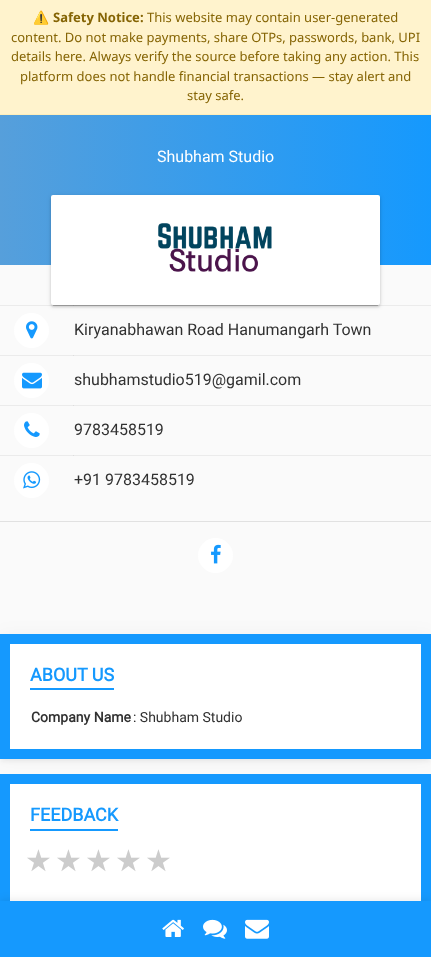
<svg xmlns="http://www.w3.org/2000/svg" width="431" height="957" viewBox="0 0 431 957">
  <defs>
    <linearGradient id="g1" gradientUnits="userSpaceOnUse" x1="0" y1="190" x2="431" y2="190"><stop offset="0" stop-color="#569fdb"/><stop offset="1" stop-color="#1599fe"/></linearGradient>
    <filter id="blur1" x="-50%" y="-200%" width="200%" height="500%"><feGaussianBlur stdDeviation="2.5"/></filter>
    <filter id="blur2" x="-50%" y="-200%" width="200%" height="500%"><feGaussianBlur stdDeviation="0.5"/></filter>
    <filter id="blur3" x="-50%" y="-200%" width="200%" height="500%"><feGaussianBlur stdDeviation="1"/></filter>
    <filter id="blur4" x="-50%" y="-200%" width="200%" height="500%"><feGaussianBlur stdDeviation="9"/></filter>
    <filter id="blur5" x="-50%" y="-200%" width="200%" height="500%"><feGaussianBlur stdDeviation="5"/></filter>
  </defs>
  <rect width="100%" height="100%" fill="#fafafa"/>
  <rect x="0" y="0" width="431" height="114" fill="#fff3cd"/>
  <rect x="0" y="114" width="431" height="1" fill="#ffeeba"/>
  <text x="33" y="22" font-family="Noto Color Emoji" font-size="13" fill="#856404">⚠️</text>
  <text x="53" y="22" font-family="Noto Sans" font-size="13" font-weight="bold" fill="#856404">Safety Notice:</text>
  <text x="147" y="22" font-family="Noto Sans" font-size="13" fill="#856404">This website may contain user-generated</text>
  <text x="11" y="42" font-family="Noto Sans" font-size="13" fill="#856404">content. Do not make payments, share OTPs, passwords, bank, UPI</text>
  <text x="11" y="61" font-family="Noto Sans" font-size="13" fill="#856404">details here. Always verify the source before taking any action. This</text>
  <text x="20" y="81" font-family="Noto Sans" font-size="13" fill="#856404">platform does not handle financial transactions — stay alert and</text>
  <text x="187" y="100" font-family="Noto Sans" font-size="13" fill="#856404">stay safe.</text>
  <rect x="0" y="305" width="431" height="1" fill="#ebebeb"/>
  <rect x="0" y="355" width="431" height="1" fill="#ebebeb"/>
  <rect x="0" y="405" width="431" height="1" fill="#ebebeb"/>
  <rect x="0" y="455" width="431" height="1" fill="#ebebeb"/>
  <rect x="0" y="115" width="431" height="150" fill="url(#g1)"/>
  <text x="157" y="162" font-family="Roboto" font-size="16" fill="#ffffff">Shubham Studio</text>
  <circle cx="31.5" cy="330.5" r="17.5" fill="#ffffff"/>
  <rect x="73" y="305" width="1" height="1" fill="#dddddd"/>
  <rect x="51" y="196" width="329" height="110" rx="2" fill="#000000" fill-opacity="0.12" filter="url(#blur1)"/>
  <rect x="53" y="200" width="325" height="106" fill="#000000" fill-opacity="0.2" filter="url(#blur2)"/>
  <rect x="51" y="197" width="329" height="110" rx="2" fill="#000000" fill-opacity="0.14" filter="url(#blur3)"/>
  <rect x="51" y="195" width="329" height="110" rx="2" fill="#ffffff"/>
  <image x="158" y="223" width="114" height="49" href="img1.png"/>
  <image x="26" y="321" width="12" height="18" href="img2.png"/>
  <text x="74" y="335" font-family="Roboto" font-size="16" fill="#313131">Kiryanabhawan Road Hanumangarh Town</text>
  <circle cx="31.5" cy="380.5" r="17.5" fill="#ffffff"/>
  <image x="22" y="372" width="20" height="17" href="img3.png"/>
  <rect x="73" y="355" width="1" height="1" fill="#dddddd"/>
  <text x="74" y="385" font-family="Roboto" font-size="16" fill="#313131">shubhamstudio519@gamil.com</text>
  <circle cx="31.5" cy="430.5" r="17.5" fill="#ffffff"/>
  <image x="24" y="421" width="16" height="16" href="img4.png"/>
  <rect x="73" y="405" width="1" height="1" fill="#dddddd"/>
  <text x="74" y="435" font-family="Roboto" font-size="16" fill="#313131">9783458519</text>
  <circle cx="31.5" cy="480.5" r="17.5" fill="#ffffff"/>
  <image x="23" y="471" width="18" height="18" href="img5.png"/>
  <rect x="73" y="455" width="1" height="1" fill="#dddddd"/>
  <text x="74" y="485" font-family="Roboto" font-size="16" fill="#313131">+91 9783458519</text>
  <rect x="0" y="521" width="431" height="1" fill="#e1e1e1"/>
  <circle cx="215.5" cy="555.5" r="17.5" fill="#ffffff"/>
  <image x="211" y="544" width="10" height="20" href="img6.png"/>
  <rect x="0" y="635" width="431" height="125" fill="#000000" fill-opacity="0.04" filter="url(#blur4)"/>
  <rect x="1" y="638" width="429" height="123" fill="#000000" fill-opacity="0.06" filter="url(#blur1)"/>
  <rect x="5" y="639" width="421" height="115" fill="#ffffff" stroke="#1599fe" stroke-width="10"/>
  <text x="30" y="681" font-family="Roboto" font-size="18" font-weight="bold" fill="#1599fe">ABOUT US</text>
  <rect x="30" y="688" width="84" height="2" fill="#1599fe"/>
  <text x="31" y="722" font-family="Roboto" font-size="14" font-weight="bold" fill="#313131">Company Name</text>
  <text x="133" y="722" font-family="Roboto" font-size="14" fill="#313131">: Shubham Studio</text>
  <rect x="10" y="784" width="411" height="117" fill="#ffffff"/>
  <rect x="5" y="779" width="421" height="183" fill="none" stroke="#1599fe" stroke-width="10"/>
  <text x="30" y="821" font-family="Roboto" font-size="18" font-weight="bold" fill="#1599fe">FEEDBACK</text>
  <rect x="30" y="829" width="88" height="2" fill="#1599fe"/>
  <text x="25" y="871" font-family="DejaVu Sans" font-size="30" fill="#cccccc">★</text>
  <text x="55" y="871" font-family="DejaVu Sans" font-size="30" fill="#cccccc">★</text>
  <text x="85" y="871" font-family="DejaVu Sans" font-size="30" fill="#cccccc">★</text>
  <text x="115" y="871" font-family="DejaVu Sans" font-size="30" fill="#cccccc">★</text>
  <text x="145" y="871" font-family="DejaVu Sans" font-size="30" fill="#cccccc">★</text>
  <rect x="0" y="901" width="431" height="56" fill="#000000" fill-opacity="0.1" filter="url(#blur5)"/>
  <rect x="0" y="901" width="431" height="56" fill="#1599fe"/>
  <image x="162" y="919" width="22" height="18" href="img7.png"/>
  <image x="203" y="919" width="24" height="20" href="img8.png"/>
  <image x="245" y="919" width="24" height="20" href="img9.png"/>
</svg>
